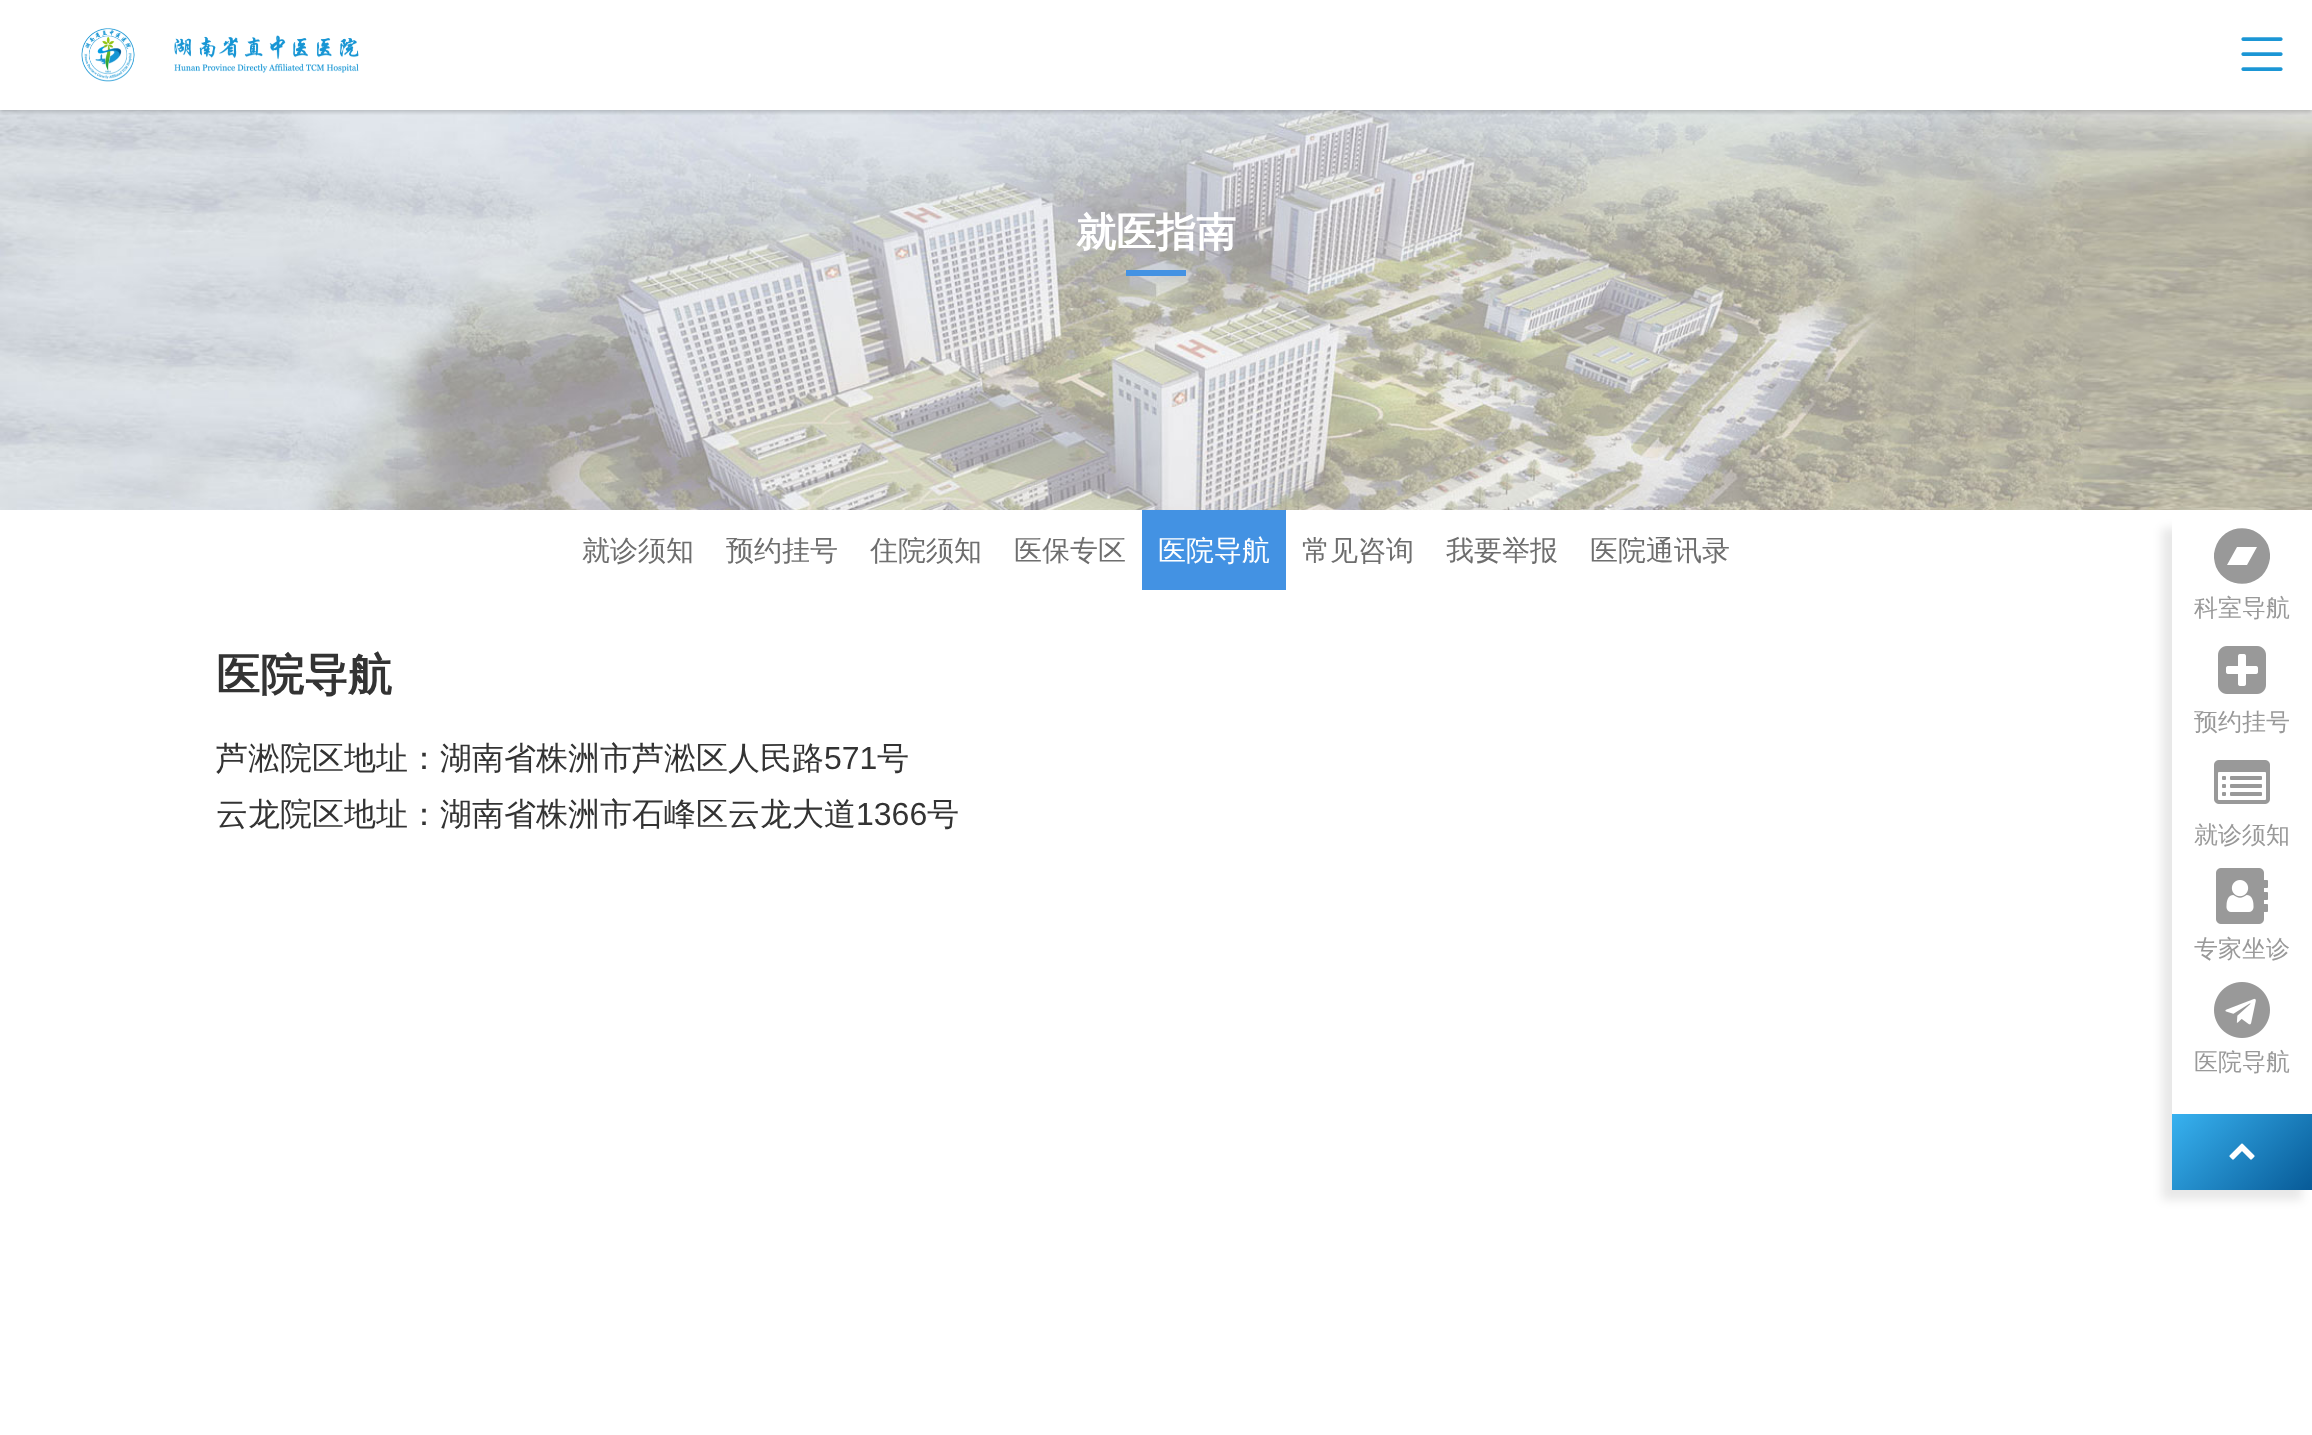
<svg xmlns="http://www.w3.org/2000/svg" width="2312" height="1435" viewBox="0 0 2312 1435">
  <defs>
    <clipPath id="clip1"><rect x="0" y="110" width="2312" height="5"/></clipPath>
    <filter id="blur1" x="-50%" y="-200%" width="200%" height="500%"><feGaussianBlur stdDeviation="2"/></filter>
    <clipPath id="clip2"><path d="M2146 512H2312V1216H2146ZM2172 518H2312V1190H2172Z" clip-rule="evenodd"/></clipPath>
    <filter id="blur2" x="-50%" y="-200%" width="200%" height="500%"><feGaussianBlur stdDeviation="5"/></filter>
    <linearGradient id="g1" gradientUnits="userSpaceOnUse" x1="2188" y1="1098" x2="2296" y2="1206"><stop offset="0" stop-color="#38b2f0"/><stop offset="1" stop-color="#075a97"/></linearGradient>
  </defs>
  <rect width="100%" height="100%" fill="#ffffff"/>
  <image x="0" y="110" width="2312" height="400" href="img3.png"/>
  <g clip-path="url(#clip1)">
    <rect x="0" y="2" width="2312" height="110" fill="#000000" fill-opacity="0.2" filter="url(#blur1)"/>
  </g>
  <image x="81" y="28" width="278" height="54" href="img1.png"/>
  <image x="2241" y="37" width="42" height="34" href="img2.png"/>
  <text x="1076" y="246" font-family="WenQuanYi Zen Hei" font-size="40" font-weight="bold" fill="#ffffff">就医指南</text>
  <rect x="1126" y="270" width="60" height="6" fill="#4392e3"/>
  <text x="582" y="560" font-family="WenQuanYi Zen Hei" font-size="28" font-weight="500" fill="#6e6e6e">就诊须知</text>
  <text x="726" y="560" font-family="WenQuanYi Zen Hei" font-size="28" font-weight="500" fill="#6e6e6e">预约挂号</text>
  <text x="870" y="560" font-family="WenQuanYi Zen Hei" font-size="28" font-weight="500" fill="#6e6e6e">住院须知</text>
  <text x="1014" y="560" font-family="WenQuanYi Zen Hei" font-size="28" font-weight="500" fill="#6e6e6e">医保专区</text>
  <rect x="1142" y="510" width="144" height="80" fill="#4392e3"/>
  <text x="1158" y="560" font-family="WenQuanYi Zen Hei" font-size="28" font-weight="500" fill="#ffffff">医院导航</text>
  <text x="1302" y="560" font-family="WenQuanYi Zen Hei" font-size="28" font-weight="500" fill="#6e6e6e">常见咨询</text>
  <text x="1446" y="560" font-family="WenQuanYi Zen Hei" font-size="28" font-weight="500" fill="#6e6e6e">我要举报</text>
  <text x="1590" y="560" font-family="WenQuanYi Zen Hei" font-size="28" font-weight="500" fill="#6e6e6e">医院通讯录</text>
  <text x="216" y="690" font-family="WenQuanYi Zen Hei" font-size="44" font-weight="bold" fill="#333333">医院导航</text>
  <text x="216" y="769" font-family="WenQuanYi Zen Hei" font-size="32" font-weight="500" fill="#333333">芦淞院区地址：湖南省株洲市芦淞区人民路</text>
  <text x="824" y="769" font-family="Liberation Sans" font-size="32" fill="#333333">571</text>
  <text x="877" y="769" font-family="WenQuanYi Zen Hei" font-size="32" font-weight="500" fill="#333333">号</text>
  <text x="216" y="825" font-family="WenQuanYi Zen Hei" font-size="32" font-weight="500" fill="#333333">云龙院区地址：湖南省株洲市石峰区云龙大道</text>
  <text x="856" y="825" font-family="Liberation Sans" font-size="32" fill="#333333">1366</text>
  <text x="927" y="825" font-family="WenQuanYi Zen Hei" font-size="32" font-weight="500" fill="#333333">号</text>
  <g clip-path="url(#clip2)">
    <rect x="2162" y="528" width="140" height="672" fill="#000000" fill-opacity="0.09" filter="url(#blur2)"/>
  </g>
  <path d="M2247 565L2257 547H2237L2227 565ZM2268 545C2270 551 2271 557 2269 563C2262 589 2227 591 2216 567C2214 561 2213 555 2215 549C2222 523 2257 521 2268 545Z" fill="#999999"/>
  <text x="2194" y="616" font-family="WenQuanYi Zen Hei" font-size="24" font-weight="500" fill="#999999">科室导航</text>
  <image x="2218" y="646" width="48" height="48" href="img4.png"/>
  <text x="2194" y="730" font-family="WenQuanYi Zen Hei" font-size="24" font-weight="500" fill="#999999">预约挂号</text>
  <image x="2214" y="760" width="56" height="44" href="img5.png"/>
  <text x="2194" y="843" font-family="WenQuanYi Zen Hei" font-size="24" font-weight="500" fill="#999999">就诊须知</text>
  <image x="2216" y="868" width="52" height="56" href="img6.png"/>
  <text x="2194" y="957" font-family="WenQuanYi Zen Hei" font-size="24" font-weight="500" fill="#999999">专家坐诊</text>
  <image x="2214" y="982" width="56" height="56" href="img7.png"/>
  <text x="2194" y="1070" font-family="WenQuanYi Zen Hei" font-size="24" font-weight="500" fill="#999999">医院导航</text>
  <rect x="2172" y="1114" width="140" height="76" fill="url(#g1)"/>
  <image x="2229" y="1143" width="26" height="17" href="img8.png"/>
</svg>
